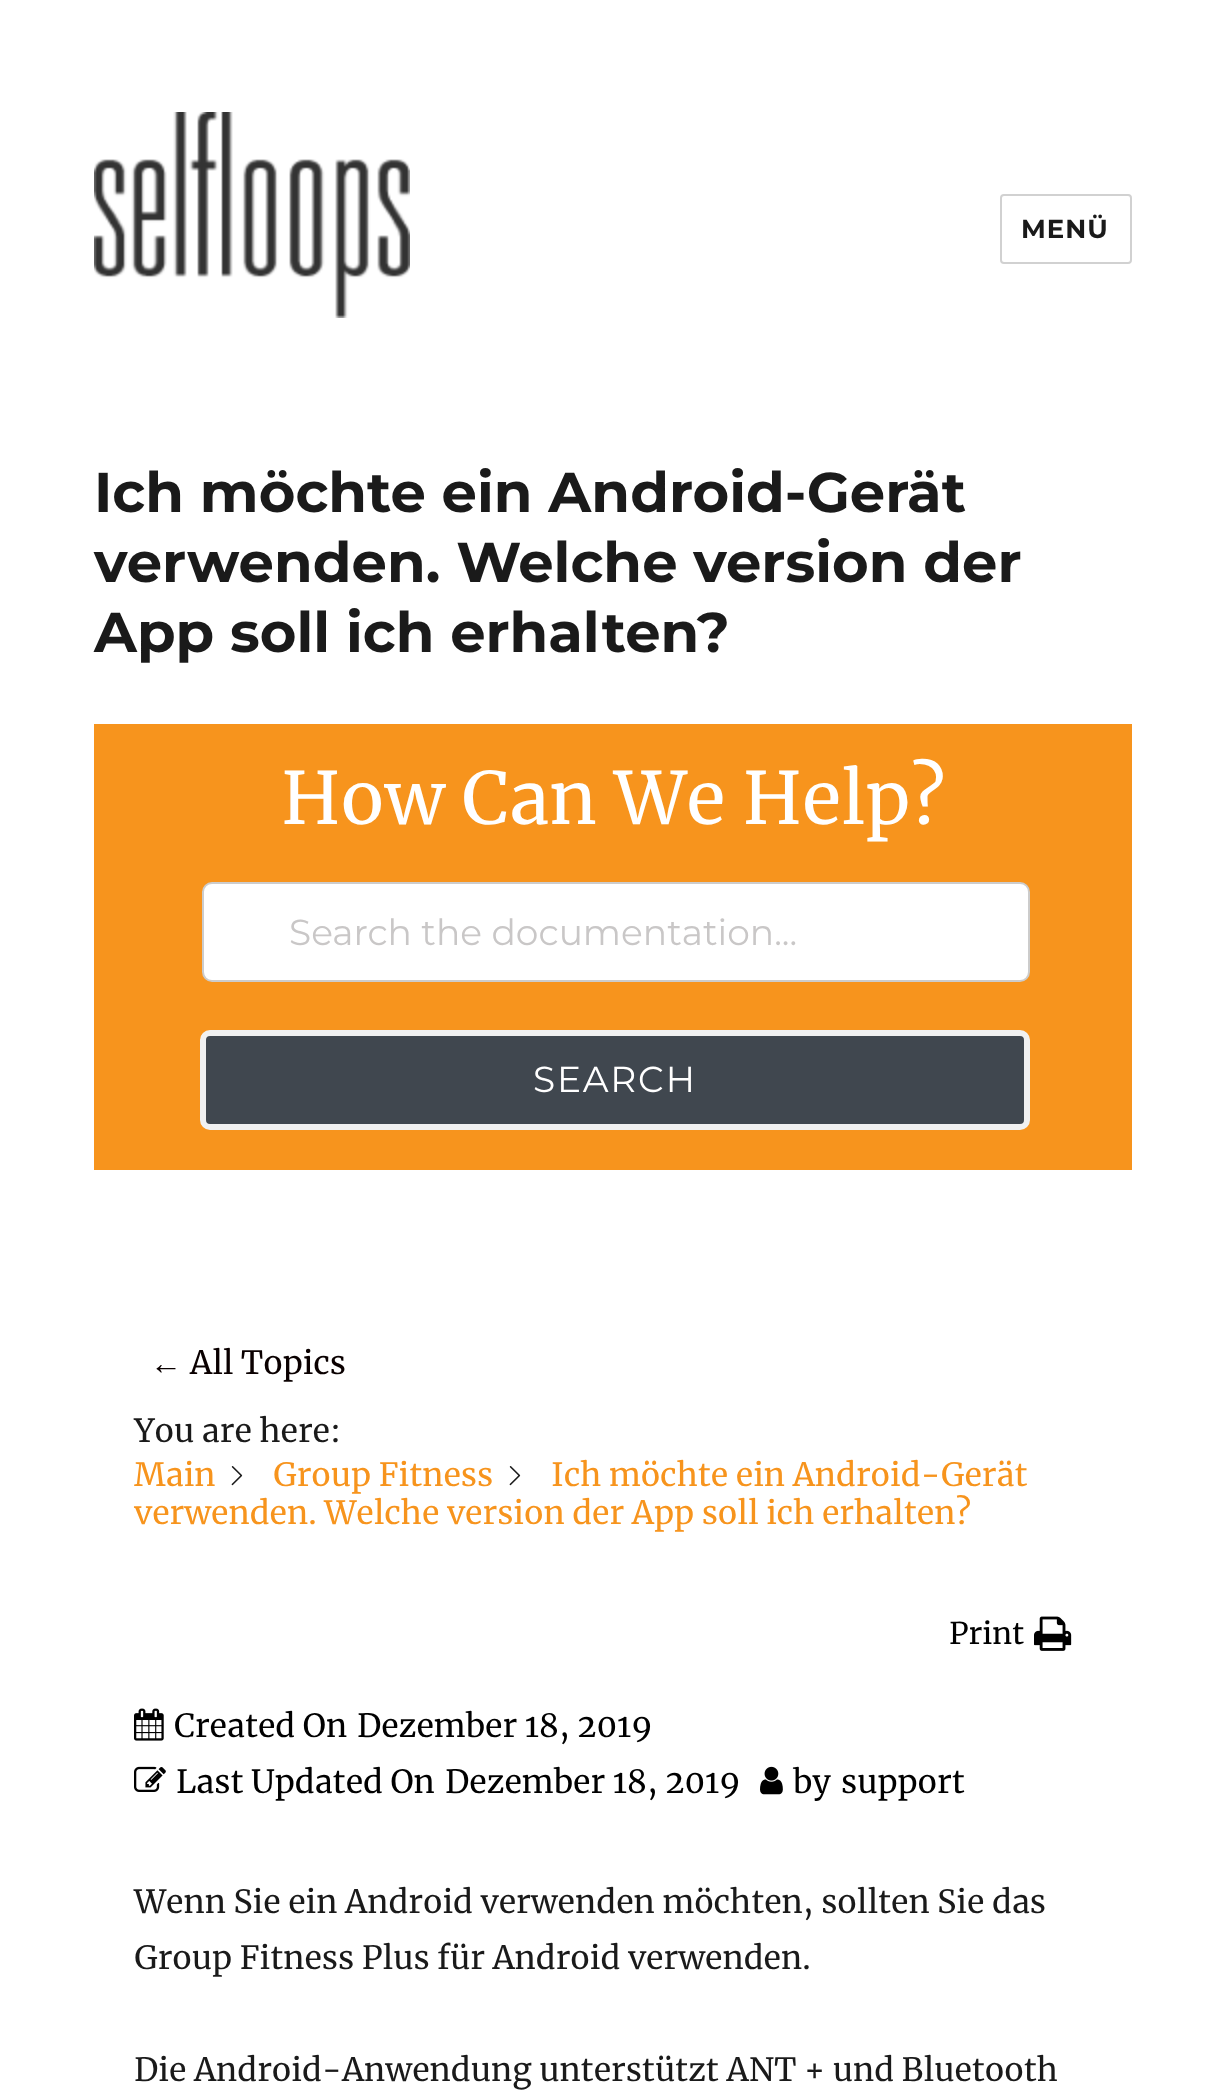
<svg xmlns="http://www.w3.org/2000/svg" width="1225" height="2099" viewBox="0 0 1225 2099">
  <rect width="100%" height="100%" fill="#ffffff"/>
  <image x="94" y="112" width="316" height="206" href="img1.png"/>
  <rect x="1001" y="195" width="130" height="68" rx="3" fill="none" stroke="#d1d1d1" stroke-width="2"/>
  <text x="1021" y="238" font-family="Montserrat" font-size="26" font-weight="100" letter-spacing="1" fill="#1a1a1a">MENÜ</text>
  <text x="94" y="512" font-family="Montserrat" font-size="56" font-weight="100" fill="#1a1a1a">Ich möchte ein Android-Gerät</text>
  <text x="94" y="582" font-family="Montserrat" font-size="56" font-weight="100" fill="#1a1a1a">verwenden. Welche version der</text>
  <text x="94" y="652" font-family="Montserrat" font-size="56" font-weight="100" fill="#1a1a1a">App soll ich erhalten?</text>
  <rect x="94" y="724" width="1038" height="446" fill="#f7941d"/>
  <text x="281" y="824" font-family="Merriweather" font-size="72" fill="#ffffff">How Can We Help?</text>
  <rect x="203" y="883" width="826" height="98" rx="9" fill="#ffffff" stroke="#cccccc" stroke-width="2"/>
  <text x="289" y="945" font-family="'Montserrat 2'" font-size="36" font-weight="100" fill="#c9c7c7">Search the documentation...</text>
  <rect x="203" y="1033" width="824" height="94" rx="7" fill="#40474f" stroke="#f1f1f1" stroke-width="6"/>
  <text x="533" y="1092" font-family="'Montserrat 2'" font-size="36" font-weight="100" letter-spacing="1.75" fill="#ffffff">SEARCH</text>
  <text x="150" y="1374" font-family="Liberation Serif" font-size="32" fill="#0a0000">←</text>
  <text x="190" y="1374" font-family="Merriweather" font-size="32" fill="#0a0000">All Topics</text>
  <text x="134" y="1442" font-family="Merriweather" font-size="32" fill="#1a1a1a">You are here:</text>
  <text x="134" y="1486" font-family="Merriweather" font-size="32" fill="#f7941d">Main</text>
  <image x="231" y="1466" width="12" height="20" href="img2.png"/>
  <text x="273" y="1486" font-family="Merriweather" font-size="32" fill="#f7941d">Group Fitness</text>
  <image x="509" y="1466" width="12" height="20" href="img2.png"/>
  <text x="551" y="1486" font-family="Merriweather" font-size="32" fill="#f7941d">Ich möchte ein Android-Gerät</text>
  <text x="134" y="1524" font-family="Merriweather" font-size="32" fill="#f7941d">verwenden. Welche version der App soll ich erhalten?</text>
  <text x="949" y="1644" font-family="Merriweather" font-size="30" fill="#000000">Print</text>
  <image x="1034" y="1616" width="38" height="35" href="img3.png"/>
  <image x="134" y="1708" width="30" height="33" href="img4.png"/>
  <text x="174" y="1737" font-family="Merriweather" font-size="32" fill="#000000">Created On</text>
  <text x="357" y="1737" font-family="Merriweather" font-size="32" fill="#000000">Dezember 18, 2019</text>
  <image x="134" y="1766" width="32" height="26" href="img5.png"/>
  <text x="176" y="1793" font-family="Merriweather" font-size="32" fill="#000000">Last Updated On</text>
  <text x="445" y="1793" font-family="Merriweather" font-size="32" fill="#000000">Dezember 18, 2019</text>
  <image x="760" y="1766" width="23" height="29" href="img6.png"/>
  <text x="793" y="1793" font-family="Merriweather" font-size="32" fill="#000000">by</text>
  <text x="841" y="1793" font-family="Merriweather" font-size="32" fill="#000000">support</text>
  <text x="134" y="1913" font-family="Merriweather" font-size="32" fill="#1a1a1a">Wenn Sie ein Android verwenden möchten, sollten Sie das</text>
  <text x="134" y="1969" font-family="Merriweather" font-size="32" fill="#1a1a1a">Group Fitness Plus für Android verwenden.</text>
  <text x="134" y="2081" font-family="Merriweather" font-size="32" fill="#1a1a1a">Die Android-Anwendung unterstützt ANT + und Bluetooth</text>
</svg>
